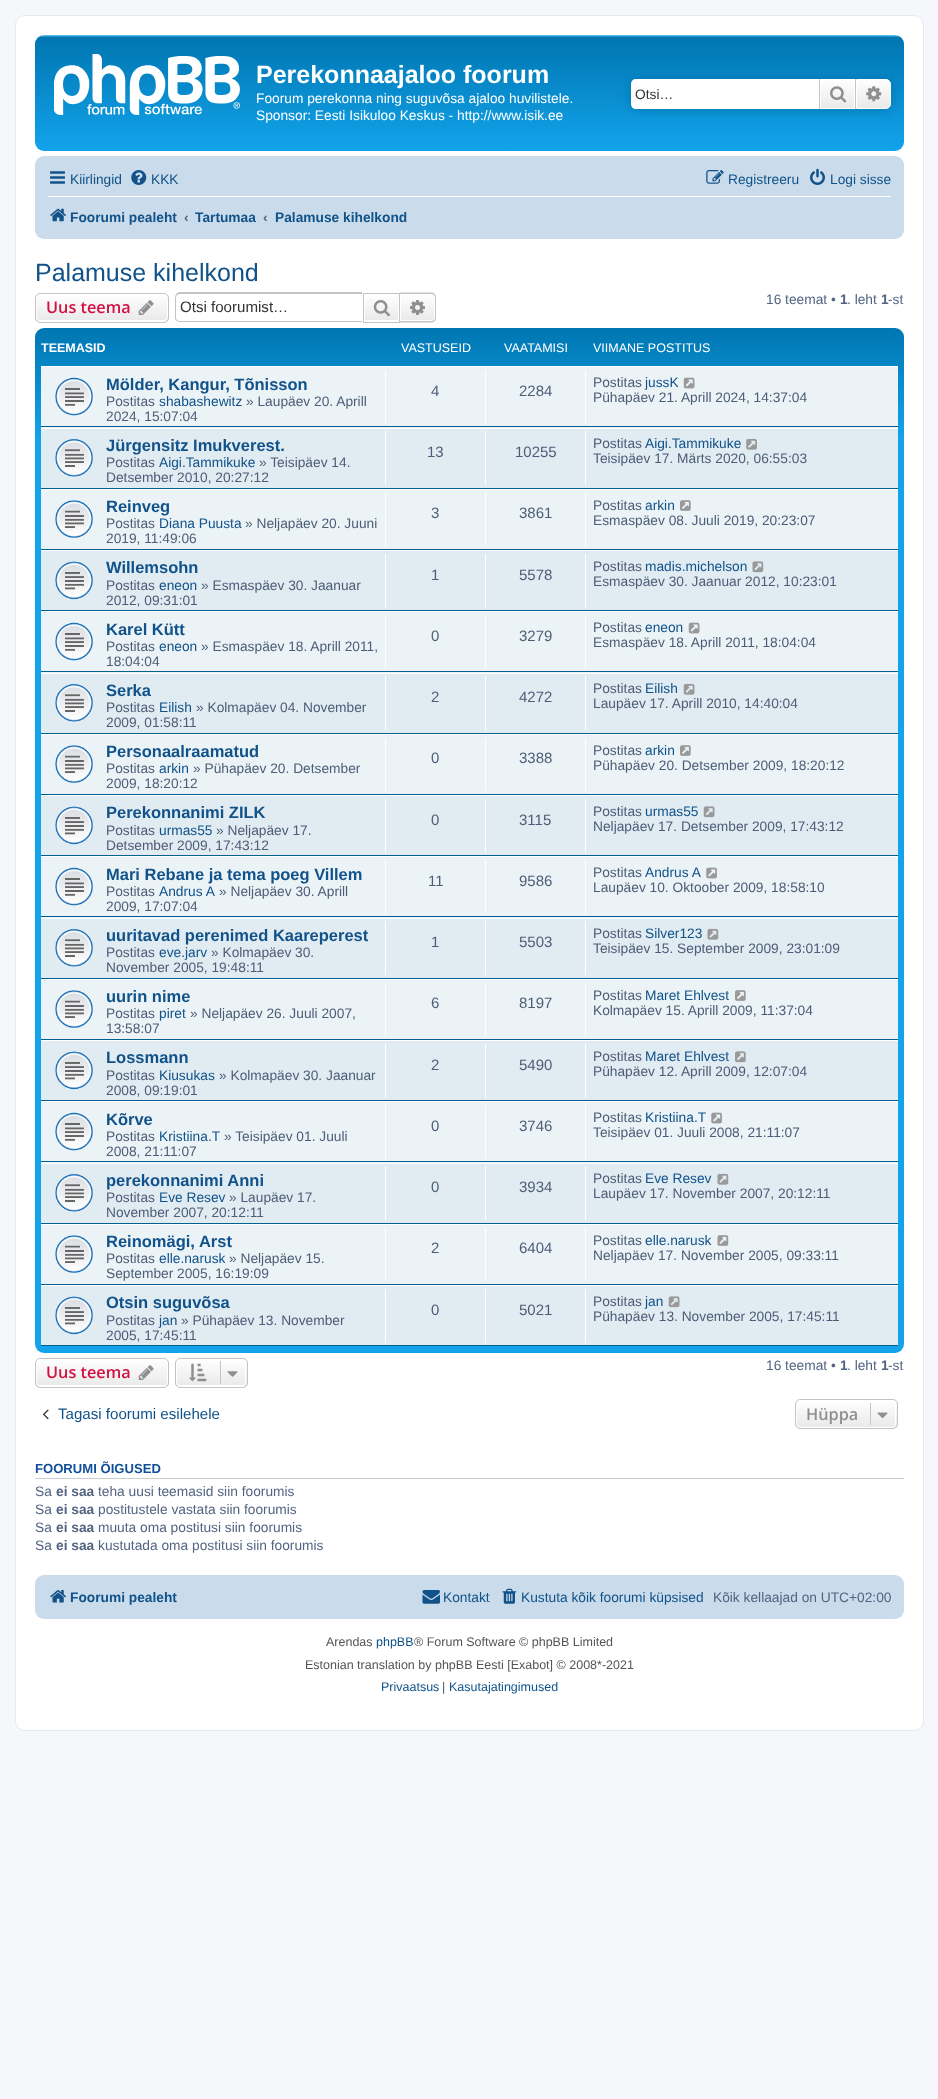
<svg xmlns="http://www.w3.org/2000/svg" width="938" height="2099" viewBox="0 0 938 2099">
  <defs>
    <linearGradient id="g1" gradientUnits="userSpaceOnUse" x1="469" y1="35" x2="469" y2="151"><stop offset="0" stop-color="#6aceff"/><stop offset="0.02" stop-color="#0076b1"/><stop offset="0.99" stop-color="#12a3eb"/><stop offset="1" stop-color="#12a3eb"/></linearGradient>
    <filter id="blur1" x="-50%" y="-200%" width="200%" height="500%"><feGaussianBlur stdDeviation="6"/></filter>
    <linearGradient id="g2" gradientUnits="userSpaceOnUse" x1="838" y1="79" x2="838" y2="109"><stop offset="0" stop-color="#ffffff"/><stop offset="1" stop-color="#e9e9e9"/></linearGradient>
    <linearGradient id="g3" gradientUnits="userSpaceOnUse" x1="874" y1="79" x2="874" y2="109"><stop offset="0" stop-color="#ffffff"/><stop offset="1" stop-color="#e9e9e9"/></linearGradient>
    <clipPath id="clip1"><rect x="35" y="293" width="134" height="30" rx="5"/></clipPath>
    <linearGradient id="g4" gradientUnits="userSpaceOnUse" x1="102" y1="294" x2="102" y2="321"><stop offset="0" stop-color="#ffffff"/><stop offset="1" stop-color="#e9e9e9"/></linearGradient>
    <linearGradient id="g5" gradientUnits="userSpaceOnUse" x1="381" y1="294" x2="381" y2="321"><stop offset="0" stop-color="#ffffff"/><stop offset="1" stop-color="#e9e9e9"/></linearGradient>
    <linearGradient id="g6" gradientUnits="userSpaceOnUse" x1="418" y1="294" x2="418" y2="321"><stop offset="0" stop-color="#ffffff"/><stop offset="1" stop-color="#e9e9e9"/></linearGradient>
    <linearGradient id="g7" gradientUnits="userSpaceOnUse" x1="469" y1="327" x2="469" y2="1353"><stop offset="0" stop-color="#6aceff"/><stop offset="0" stop-color="#0076b1"/><stop offset="0.11" stop-color="#12a3eb"/><stop offset="1" stop-color="#12a3eb"/></linearGradient>
    <clipPath id="clip2"><rect x="35" y="1358" width="134" height="30" rx="5"/></clipPath>
    <linearGradient id="g8" gradientUnits="userSpaceOnUse" x1="102" y1="1359" x2="102" y2="1386"><stop offset="0" stop-color="#ffffff"/><stop offset="1" stop-color="#e9e9e9"/></linearGradient>
    <clipPath id="clip3"><rect x="175" y="1358" width="73" height="30" rx="5"/></clipPath>
    <linearGradient id="g9" gradientUnits="userSpaceOnUse" x1="211" y1="1359" x2="211" y2="1386"><stop offset="0" stop-color="#ffffff"/><stop offset="1" stop-color="#e9e9e9"/></linearGradient>
    <clipPath id="clip4"><rect x="795" y="1399" width="103" height="30" rx="5"/></clipPath>
    <linearGradient id="g10" gradientUnits="userSpaceOnUse" x1="846" y1="1400" x2="846" y2="1428"><stop offset="0" stop-color="#ffffff"/><stop offset="1" stop-color="#e9e9e9"/></linearGradient>
  </defs>
  <rect width="100%" height="100%" fill="#f5f7fa"/>
  <rect x="15.5" y="15.5" width="908" height="1715" rx="9.5" fill="#ffffff" stroke="#e6e9ed"/>
  <rect x="35" y="35" width="869" height="116" rx="9" fill="url(#g1)"/>
  <image x="54" y="54" width="186" height="61" href="img1.png"/>
  <text x="256" y="83" font-family="Liberation Sans" font-size="25" font-weight="bold" fill="#ffffff">Perekonnaajaloo foorum</text>
  <text x="256" y="103" font-family="Liberation Sans" font-size="13.75" fill="#ffffff">Foorum perekonna ning suguvõsa ajaloo huvilistele.</text>
  <text x="256" y="120" font-family="Liberation Sans" font-size="13.75" fill="#ffffff">Sponsor: Eesti Isikuloo Keskus - http://www.isik.ee</text>
  <rect x="631" y="79" width="260" height="30" rx="5" fill="#0075b0" filter="url(#blur1)"/>
  <path d="M636 79H819V109H636C633 109 631 107 631 104V84C631 81 633 79 636 79Z" fill="#ffffff"/>
  <text x="635" y="99" font-family="Liberation Sans" font-size="13.75" fill="#333333">Otsi…</text>
  <rect x="821" y="80" width="33" height="28" fill="url(#g2)"/>
  <rect x="820.5" y="79.5" width="34" height="29" fill="none" stroke="#ffffff"/>
  <rect x="855" y="79" width="1" height="30" fill="#c7c3bf"/>
  <rect x="819" y="79" width="1" height="30" fill="#c7c3bf"/>
  <image x="830" y="86" width="17" height="17" href="img2.png"/>
  <path d="M856.5 79.5H886C888.5 79.5 890.5 81.5 890.5 84V104C890.5 106.5 888.5 108.5 886 108.5H856.5Z" fill="url(#g3)" stroke="#ffffff"/>
  <image x="866" y="86" width="16" height="16" href="img3.png"/>
  <rect x="35" y="156" width="869" height="83" rx="9" fill="#cadceb"/>
  <image x="50" y="171" width="15" height="13" href="img4.png"/>
  <text x="70" y="184" font-family="Liberation Sans" font-size="13.75" fill="#105289">Kiirlingid</text>
  <image x="131" y="170" width="16" height="15" href="img5.png"/>
  <text x="151" y="184" font-family="Liberation Sans" font-size="13.75" fill="#105289">KKK</text>
  <image x="706" y="170" width="18" height="14" href="img6.png"/>
  <text x="728" y="184" font-family="Liberation Sans" font-size="13.75" fill="#105289">Registreeru</text>
  <image x="810" y="168" width="15" height="17" href="img7.png"/>
  <text x="830" y="184" font-family="Liberation Sans" font-size="13.75" fill="#105289">Logi sisse</text>
  <rect x="48" y="196" width="843" height="1" fill="#ffffff"/>
  <image x="50" y="208" width="16" height="14" href="img8.png"/>
  <text x="70" y="222" font-family="Liberation Sans" font-size="13.75" font-weight="bold" fill="#105289">Foorumi pealeht</text>
  <text x="184" y="222" font-family="Liberation Sans" font-size="13.75" font-weight="bold" fill="#536482">‹</text>
  <text x="195" y="222" font-family="Liberation Sans" font-size="13.75" font-weight="bold" fill="#105289">Tartumaa</text>
  <text x="263" y="222" font-family="Liberation Sans" font-size="13.75" font-weight="bold" fill="#536482">‹</text>
  <text x="275" y="222" font-family="Liberation Sans" font-size="13.75" font-weight="bold" fill="#105289">Palamuse kihelkond</text>
  <text x="35" y="281" font-family="Liberation Sans" font-size="25" fill="#105289">Palamuse kihelkond</text>
  <text x="766" y="304" font-family="Liberation Sans" font-size="13.75" fill="#536482">16 teemat •</text>
  <text x="840" y="304" font-family="Liberation Sans" font-size="13.75" font-weight="bold" fill="#536482">1</text>
  <text x="847" y="304" font-family="Liberation Sans" font-size="13.75" fill="#536482">. leht</text>
  <text x="881" y="304" font-family="Liberation Sans" font-size="13.75" font-weight="bold" fill="#536482">1</text>
  <text x="888" y="304" font-family="Liberation Sans" font-size="13.75" fill="#536482">-st</text>
  <g clip-path="url(#clip1)">
    <rect x="35" y="294" width="134" height="27" fill="url(#g4)"/>
  </g>
  <rect x="36.5" y="294.5" width="131" height="26" rx="3.5" fill="none" stroke="#ffffff"/>
  <rect x="35.5" y="293.5" width="133" height="29" rx="4.5" fill="none" stroke="#c7c3bf"/>
  <text x="46" y="313" font-family="Open Sans" font-size="16.25" font-weight="600" fill="#d31141">Uus teema</text>
  <image x="138" y="300" width="16" height="15" href="img9.png"/>
  <path d="M180 292H362V322H180C177 322 175 320 175 318V298C175 295 177 292 180 292ZM180 294H362V321H180C178 321 176 320 176 318V298C176 295 178 294 180 294Z" fill="#c7c3bf" fill-rule="evenodd"/>
  <text x="180" y="312" font-family="Liberation Sans" font-size="15.1" fill="#333333">Otsi foorumist…</text>
  <rect x="365" y="297" width="33" height="23" fill="url(#g5)"/>
  <rect x="363.5" y="293.5" width="36" height="29" fill="none" stroke="#c7c3bf"/>
  <image x="373" y="300" width="17" height="17" href="img10.png"/>
  <path d="M400.5 294.5H431C433 294.5 434.5 296 434.5 298V317C434.5 319 433 320.5 431 320.5H400.5Z" fill="url(#g6)" stroke="#ffffff"/>
  <path d="M400 292.5H431C434 292.5 436 294.5 436 297.5V317.5C436 320.5 434 322.5 431 322.5H400ZM400 294H431C433.5 294 435 295.5 435 297.5V317.5C435 319.5 433.5 321 431 321H400Z" fill="#c7c3bf" fill-rule="evenodd"/>
  <image x="410" y="300" width="15" height="15" href="img11.png"/>
  <rect x="35" y="328" width="869" height="1025" rx="9" fill="url(#g7)"/>
  <text x="41" y="352" font-family="Liberation Sans" font-size="12.5" font-weight="bold" fill="#ffffff">TEEMASID</text>
  <text x="401" y="352" font-family="Liberation Sans" font-size="12.5" fill="#ffffff">VASTUSEID</text>
  <text x="504" y="352" font-family="Liberation Sans" font-size="12.5" fill="#ffffff">VAATAMISI</text>
  <text x="593" y="352" font-family="Liberation Sans" font-size="12.5" fill="#ffffff">VIIMANE POSTITUS</text>
  <rect x="41" y="367" width="857" height="61" fill="#ecf3f7"/>
  <rect x="41" y="366" width="857" height="1" fill="#ffffff"/>
  <rect x="41" y="426" width="857" height="1" fill="#00608f"/>
  <image x="55" y="377" width="38" height="39" href="img12.png"/>
  <text x="106" y="390" font-family="Liberation Sans" font-size="16.5" font-weight="bold" fill="#105289">Mölder, Kangur, Tõnisson</text>
  <text x="106" y="406" font-family="Liberation Sans" font-size="13.75" fill="#4c5d77">Postitas</text>
  <text x="159" y="406" font-family="Liberation Sans" font-size="13.75" fill="#105289">shabashewitz</text>
  <text x="246" y="406" font-family="Liberation Sans" font-size="13.75" fill="#4c5d77">» Laupäev 20. Aprill</text>
  <text x="106" y="421" font-family="Liberation Sans" font-size="13.75" fill="#4c5d77">2024, 15:07:04</text>
  <rect x="385" y="370" width="1" height="54" fill="#ffffff"/>
  <text x="431" y="396" font-family="Liberation Sans" font-size="15" fill="#4c5d77">4</text>
  <rect x="485" y="370" width="1" height="54" fill="#ffffff"/>
  <text x="519" y="396" font-family="Liberation Sans" font-size="15" fill="#4c5d77">2284</text>
  <rect x="585" y="370" width="1" height="54" fill="#ffffff"/>
  <text x="593" y="387" font-family="Liberation Sans" font-size="13.75" fill="#4c5d77">Postitas</text>
  <text x="645" y="387" font-family="Liberation Sans" font-size="13.75" fill="#105289">jussK</text>
  <image x="683" y="377" width="12" height="12" href="img13.png"/>
  <text x="593" y="402" font-family="Liberation Sans" font-size="13.75" fill="#4c5d77">Pühapäev 21. Aprill 2024, 14:37:04</text>
  <rect x="41" y="429" width="857" height="59" fill="#e1ebf2"/>
  <rect x="41" y="428" width="857" height="1" fill="#ffffff"/>
  <rect x="41" y="488" width="857" height="1" fill="#00608f"/>
  <image x="55" y="438" width="38" height="39" href="img14.png"/>
  <text x="106" y="451" font-family="Liberation Sans" font-size="16.5" font-weight="bold" fill="#105289">Jürgensitz Imukverest.</text>
  <text x="106" y="467" font-family="Liberation Sans" font-size="13.75" fill="#4c5d77">Postitas</text>
  <text x="159" y="467" font-family="Liberation Sans" font-size="13.75" fill="#105289">Aigi.Tammikuke</text>
  <text x="259" y="467" font-family="Liberation Sans" font-size="13.75" fill="#4c5d77">» Teisipäev 14.</text>
  <text x="106" y="482" font-family="Liberation Sans" font-size="13.75" fill="#4c5d77">Detsember 2010, 20:27:12</text>
  <rect x="385" y="431" width="1" height="54" fill="#ffffff"/>
  <text x="427" y="457" font-family="Liberation Sans" font-size="15" fill="#4c5d77">13</text>
  <rect x="485" y="431" width="1" height="54" fill="#ffffff"/>
  <text x="515" y="457" font-family="Liberation Sans" font-size="15" fill="#4c5d77">10255</text>
  <rect x="585" y="431" width="1" height="54" fill="#ffffff"/>
  <text x="593" y="448" font-family="Liberation Sans" font-size="13.75" fill="#4c5d77">Postitas</text>
  <text x="645" y="448" font-family="Liberation Sans" font-size="13.75" fill="#105289">Aigi.Tammikuke</text>
  <image x="746" y="438" width="11" height="12" href="img15.png"/>
  <text x="593" y="463" font-family="Liberation Sans" font-size="13.75" fill="#4c5d77">Teisipäev 17. Märts 2020, 06:55:03</text>
  <rect x="41" y="490" width="857" height="59" fill="#ecf3f7"/>
  <rect x="41" y="489" width="857" height="1" fill="#ffffff"/>
  <rect x="41" y="549" width="857" height="1" fill="#00608f"/>
  <image x="55" y="500" width="38" height="38" href="img16.png"/>
  <text x="106" y="512" font-family="Liberation Sans" font-size="16.5" font-weight="bold" fill="#105289">Reinveg</text>
  <text x="106" y="528" font-family="Liberation Sans" font-size="13.75" fill="#4c5d77">Postitas</text>
  <text x="159" y="528" font-family="Liberation Sans" font-size="13.75" fill="#105289">Diana Puusta</text>
  <text x="245" y="528" font-family="Liberation Sans" font-size="13.75" fill="#4c5d77">» Neljapäev 20. Juuni</text>
  <text x="106" y="543" font-family="Liberation Sans" font-size="13.75" fill="#4c5d77">2019, 11:49:06</text>
  <rect x="385" y="493" width="1" height="53" fill="#ffffff"/>
  <text x="431" y="518" font-family="Liberation Sans" font-size="15" fill="#4c5d77">3</text>
  <rect x="485" y="493" width="1" height="53" fill="#ffffff"/>
  <text x="519" y="518" font-family="Liberation Sans" font-size="15" fill="#4c5d77">3861</text>
  <rect x="585" y="493" width="1" height="53" fill="#ffffff"/>
  <text x="593" y="510" font-family="Liberation Sans" font-size="13.75" fill="#4c5d77">Postitas</text>
  <text x="645" y="510" font-family="Liberation Sans" font-size="13.75" fill="#105289">arkin</text>
  <image x="680" y="500" width="11" height="11" href="img17.png"/>
  <text x="593" y="525" font-family="Liberation Sans" font-size="13.75" fill="#4c5d77">Esmaspäev 08. Juuli 2019, 20:23:07</text>
  <rect x="41" y="551" width="857" height="59" fill="#e1ebf2"/>
  <rect x="41" y="550" width="857" height="1" fill="#ffffff"/>
  <rect x="41" y="610" width="857" height="1" fill="#00608f"/>
  <image x="55" y="561" width="38" height="39" href="img18.png"/>
  <text x="106" y="573" font-family="Liberation Sans" font-size="16.5" font-weight="bold" fill="#105289">Willemsohn</text>
  <text x="106" y="590" font-family="Liberation Sans" font-size="13.75" fill="#4c5d77">Postitas</text>
  <text x="159" y="590" font-family="Liberation Sans" font-size="13.75" fill="#105289">eneon</text>
  <text x="201" y="590" font-family="Liberation Sans" font-size="13.75" fill="#4c5d77">» Esmaspäev 30. Jaanuar</text>
  <text x="106" y="605" font-family="Liberation Sans" font-size="13.75" fill="#4c5d77">2012, 09:31:01</text>
  <rect x="385" y="554" width="1" height="54" fill="#ffffff"/>
  <text x="431" y="580" font-family="Liberation Sans" font-size="15" fill="#4c5d77">1</text>
  <rect x="485" y="554" width="1" height="54" fill="#ffffff"/>
  <text x="519" y="580" font-family="Liberation Sans" font-size="15" fill="#4c5d77">5578</text>
  <rect x="585" y="554" width="1" height="54" fill="#ffffff"/>
  <text x="593" y="571" font-family="Liberation Sans" font-size="13.75" fill="#4c5d77">Postitas</text>
  <text x="645" y="571" font-family="Liberation Sans" font-size="13.75" fill="#105289">madis.michelson</text>
  <image x="752" y="561" width="12" height="12" href="img19.png"/>
  <text x="593" y="586" font-family="Liberation Sans" font-size="13.75" fill="#4c5d77">Esmaspäev 30. Jaanuar 2012, 10:23:01</text>
  <rect x="41" y="612" width="857" height="61" fill="#ecf3f7"/>
  <rect x="41" y="611" width="857" height="1" fill="#ffffff"/>
  <rect x="41" y="671" width="857" height="1" fill="#00608f"/>
  <image x="55" y="622" width="38" height="39" href="img12.png"/>
  <text x="106" y="635" font-family="Liberation Sans" font-size="16.5" font-weight="bold" fill="#105289">Karel Kütt</text>
  <text x="106" y="651" font-family="Liberation Sans" font-size="13.75" fill="#4c5d77">Postitas</text>
  <text x="159" y="651" font-family="Liberation Sans" font-size="13.75" fill="#105289">eneon</text>
  <text x="201" y="651" font-family="Liberation Sans" font-size="13.75" fill="#4c5d77">» Esmaspäev 18. Aprill 2011,</text>
  <text x="106" y="666" font-family="Liberation Sans" font-size="13.75" fill="#4c5d77">18:04:04</text>
  <rect x="385" y="615" width="1" height="54" fill="#ffffff"/>
  <text x="431" y="641" font-family="Liberation Sans" font-size="15" fill="#4c5d77">0</text>
  <rect x="485" y="615" width="1" height="54" fill="#ffffff"/>
  <text x="519" y="641" font-family="Liberation Sans" font-size="15" fill="#4c5d77">3279</text>
  <rect x="585" y="615" width="1" height="54" fill="#ffffff"/>
  <text x="593" y="632" font-family="Liberation Sans" font-size="13.75" fill="#4c5d77">Postitas</text>
  <text x="645" y="632" font-family="Liberation Sans" font-size="13.75" fill="#105289">eneon</text>
  <image x="688" y="622" width="12" height="12" href="img13.png"/>
  <text x="593" y="647" font-family="Liberation Sans" font-size="13.75" fill="#4c5d77">Esmaspäev 18. Aprill 2011, 18:04:04</text>
  <rect x="41" y="674" width="857" height="59" fill="#e1ebf2"/>
  <rect x="41" y="673" width="857" height="1" fill="#ffffff"/>
  <rect x="41" y="733" width="857" height="1" fill="#00608f"/>
  <image x="55" y="683" width="38" height="39" href="img14.png"/>
  <text x="106" y="696" font-family="Liberation Sans" font-size="16.5" font-weight="bold" fill="#105289">Serka</text>
  <text x="106" y="712" font-family="Liberation Sans" font-size="13.75" fill="#4c5d77">Postitas</text>
  <text x="159" y="712" font-family="Liberation Sans" font-size="13.75" fill="#105289">Eilish</text>
  <text x="196" y="712" font-family="Liberation Sans" font-size="13.75" fill="#4c5d77">» Kolmapäev 04. November</text>
  <text x="106" y="727" font-family="Liberation Sans" font-size="13.75" fill="#4c5d77">2009, 01:58:11</text>
  <rect x="385" y="676" width="1" height="54" fill="#ffffff"/>
  <text x="431" y="702" font-family="Liberation Sans" font-size="15" fill="#4c5d77">2</text>
  <rect x="485" y="676" width="1" height="54" fill="#ffffff"/>
  <text x="519" y="702" font-family="Liberation Sans" font-size="15" fill="#4c5d77">4272</text>
  <rect x="585" y="676" width="1" height="54" fill="#ffffff"/>
  <text x="593" y="693" font-family="Liberation Sans" font-size="13.75" fill="#4c5d77">Postitas</text>
  <text x="645" y="693" font-family="Liberation Sans" font-size="13.75" fill="#105289">Eilish</text>
  <image x="683" y="683" width="12" height="12" href="img20.png"/>
  <text x="593" y="708" font-family="Liberation Sans" font-size="13.75" fill="#4c5d77">Laupäev 17. Aprill 2010, 14:40:04</text>
  <rect x="41" y="735" width="857" height="59" fill="#ecf3f7"/>
  <rect x="41" y="734" width="857" height="1" fill="#ffffff"/>
  <rect x="41" y="794" width="857" height="1" fill="#00608f"/>
  <image x="55" y="745" width="38" height="38" href="img16.png"/>
  <text x="106" y="757" font-family="Liberation Sans" font-size="16.5" font-weight="bold" fill="#105289">Personaalraamatud</text>
  <text x="106" y="773" font-family="Liberation Sans" font-size="13.75" fill="#4c5d77">Postitas</text>
  <text x="159" y="773" font-family="Liberation Sans" font-size="13.75" fill="#105289">arkin</text>
  <text x="193" y="773" font-family="Liberation Sans" font-size="13.75" fill="#4c5d77">» Pühapäev 20. Detsember</text>
  <text x="106" y="788" font-family="Liberation Sans" font-size="13.75" fill="#4c5d77">2009, 18:20:12</text>
  <rect x="385" y="738" width="1" height="53" fill="#ffffff"/>
  <text x="431" y="763" font-family="Liberation Sans" font-size="15" fill="#4c5d77">0</text>
  <rect x="485" y="738" width="1" height="53" fill="#ffffff"/>
  <text x="519" y="763" font-family="Liberation Sans" font-size="15" fill="#4c5d77">3388</text>
  <rect x="585" y="738" width="1" height="53" fill="#ffffff"/>
  <text x="593" y="755" font-family="Liberation Sans" font-size="13.75" fill="#4c5d77">Postitas</text>
  <text x="645" y="755" font-family="Liberation Sans" font-size="13.75" fill="#105289">arkin</text>
  <image x="680" y="745" width="11" height="11" href="img17.png"/>
  <text x="593" y="770" font-family="Liberation Sans" font-size="13.75" fill="#4c5d77">Pühapäev 20. Detsember 2009, 18:20:12</text>
  <rect x="41" y="796" width="857" height="59" fill="#e1ebf2"/>
  <rect x="41" y="795" width="857" height="1" fill="#ffffff"/>
  <rect x="41" y="855" width="857" height="1" fill="#00608f"/>
  <image x="55" y="806" width="38" height="39" href="img21.png"/>
  <text x="106" y="818" font-family="Liberation Sans" font-size="16.5" font-weight="bold" fill="#105289">Perekonnanimi ZILK</text>
  <text x="106" y="835" font-family="Liberation Sans" font-size="13.75" fill="#4c5d77">Postitas</text>
  <text x="159" y="835" font-family="Liberation Sans" font-size="13.75" fill="#105289">urmas55</text>
  <text x="216" y="835" font-family="Liberation Sans" font-size="13.75" fill="#4c5d77">» Neljapäev 17.</text>
  <text x="106" y="850" font-family="Liberation Sans" font-size="13.75" fill="#4c5d77">Detsember 2009, 17:43:12</text>
  <rect x="385" y="799" width="1" height="54" fill="#ffffff"/>
  <text x="431" y="825" font-family="Liberation Sans" font-size="15" fill="#4c5d77">0</text>
  <rect x="485" y="799" width="1" height="54" fill="#ffffff"/>
  <text x="519" y="825" font-family="Liberation Sans" font-size="15" fill="#4c5d77">3115</text>
  <rect x="585" y="799" width="1" height="54" fill="#ffffff"/>
  <text x="593" y="816" font-family="Liberation Sans" font-size="13.75" fill="#4c5d77">Postitas</text>
  <text x="645" y="816" font-family="Liberation Sans" font-size="13.75" fill="#105289">urmas55</text>
  <image x="703" y="806" width="12" height="12" href="img22.png"/>
  <text x="593" y="831" font-family="Liberation Sans" font-size="13.75" fill="#4c5d77">Neljapäev 17. Detsember 2009, 17:43:12</text>
  <rect x="41" y="857" width="857" height="61" fill="#ecf3f7"/>
  <rect x="41" y="856" width="857" height="1" fill="#ffffff"/>
  <rect x="41" y="916" width="857" height="1" fill="#00608f"/>
  <image x="55" y="867" width="38" height="39" href="img12.png"/>
  <text x="106" y="880" font-family="Liberation Sans" font-size="16.5" font-weight="bold" fill="#105289">Mari Rebane ja tema poeg Villem</text>
  <text x="106" y="896" font-family="Liberation Sans" font-size="13.75" fill="#4c5d77">Postitas</text>
  <text x="159" y="896" font-family="Liberation Sans" font-size="13.75" fill="#105289">Andrus A</text>
  <text x="219" y="896" font-family="Liberation Sans" font-size="13.75" fill="#4c5d77">» Neljapäev 30. Aprill</text>
  <text x="106" y="911" font-family="Liberation Sans" font-size="13.75" fill="#4c5d77">2009, 17:07:04</text>
  <rect x="385" y="860" width="1" height="54" fill="#ffffff"/>
  <text x="428" y="886" font-family="Liberation Sans" font-size="15" fill="#4c5d77">11</text>
  <rect x="485" y="860" width="1" height="54" fill="#ffffff"/>
  <text x="519" y="886" font-family="Liberation Sans" font-size="15" fill="#4c5d77">9586</text>
  <rect x="585" y="860" width="1" height="54" fill="#ffffff"/>
  <text x="593" y="877" font-family="Liberation Sans" font-size="13.75" fill="#4c5d77">Postitas</text>
  <text x="645" y="877" font-family="Liberation Sans" font-size="13.75" fill="#105289">Andrus A</text>
  <image x="706" y="867" width="11" height="12" href="img23.png"/>
  <text x="593" y="892" font-family="Liberation Sans" font-size="13.75" fill="#4c5d77">Laupäev 10. Oktoober 2009, 18:58:10</text>
  <rect x="41" y="919" width="857" height="59" fill="#e1ebf2"/>
  <rect x="41" y="918" width="857" height="1" fill="#ffffff"/>
  <rect x="41" y="978" width="857" height="1" fill="#00608f"/>
  <image x="55" y="928" width="38" height="39" href="img14.png"/>
  <text x="106" y="941" font-family="Liberation Sans" font-size="16.5" font-weight="bold" fill="#105289">uuritavad perenimed Kaareperest</text>
  <text x="106" y="957" font-family="Liberation Sans" font-size="13.75" fill="#4c5d77">Postitas</text>
  <text x="159" y="957" font-family="Liberation Sans" font-size="13.75" fill="#105289">eve.jarv</text>
  <text x="211" y="957" font-family="Liberation Sans" font-size="13.75" fill="#4c5d77">» Kolmapäev 30.</text>
  <text x="106" y="972" font-family="Liberation Sans" font-size="13.75" fill="#4c5d77">November 2005, 19:48:11</text>
  <rect x="385" y="921" width="1" height="54" fill="#ffffff"/>
  <text x="431" y="947" font-family="Liberation Sans" font-size="15" fill="#4c5d77">1</text>
  <rect x="485" y="921" width="1" height="54" fill="#ffffff"/>
  <text x="519" y="947" font-family="Liberation Sans" font-size="15" fill="#4c5d77">5503</text>
  <rect x="585" y="921" width="1" height="54" fill="#ffffff"/>
  <text x="593" y="938" font-family="Liberation Sans" font-size="13.75" fill="#4c5d77">Postitas</text>
  <text x="645" y="938" font-family="Liberation Sans" font-size="13.75" fill="#105289">Silver123</text>
  <image x="707" y="928" width="12" height="12" href="img24.png"/>
  <text x="593" y="953" font-family="Liberation Sans" font-size="13.75" fill="#4c5d77">Teisipäev 15. September 2009, 23:01:09</text>
  <rect x="41" y="980" width="857" height="59" fill="#ecf3f7"/>
  <rect x="41" y="979" width="857" height="1" fill="#ffffff"/>
  <rect x="41" y="1039" width="857" height="1" fill="#00608f"/>
  <image x="55" y="990" width="38" height="38" href="img16.png"/>
  <text x="106" y="1002" font-family="Liberation Sans" font-size="16.5" font-weight="bold" fill="#105289">uurin nime</text>
  <text x="106" y="1018" font-family="Liberation Sans" font-size="13.75" fill="#4c5d77">Postitas</text>
  <text x="159" y="1018" font-family="Liberation Sans" font-size="13.75" fill="#105289">piret</text>
  <text x="190" y="1018" font-family="Liberation Sans" font-size="13.75" fill="#4c5d77">» Neljapäev 26. Juuli 2007,</text>
  <text x="106" y="1033" font-family="Liberation Sans" font-size="13.75" fill="#4c5d77">13:58:07</text>
  <rect x="385" y="983" width="1" height="53" fill="#ffffff"/>
  <text x="431" y="1008" font-family="Liberation Sans" font-size="15" fill="#4c5d77">6</text>
  <rect x="485" y="983" width="1" height="53" fill="#ffffff"/>
  <text x="519" y="1008" font-family="Liberation Sans" font-size="15" fill="#4c5d77">8197</text>
  <rect x="585" y="983" width="1" height="53" fill="#ffffff"/>
  <text x="593" y="1000" font-family="Liberation Sans" font-size="13.75" fill="#4c5d77">Postitas</text>
  <text x="645" y="1000" font-family="Liberation Sans" font-size="13.75" fill="#105289">Maret Ehlvest</text>
  <image x="735" y="990" width="11" height="11" href="img17.png"/>
  <text x="593" y="1015" font-family="Liberation Sans" font-size="13.75" fill="#4c5d77">Kolmapäev 15. Aprill 2009, 11:37:04</text>
  <rect x="41" y="1041" width="857" height="59" fill="#e1ebf2"/>
  <rect x="41" y="1040" width="857" height="1" fill="#ffffff"/>
  <rect x="41" y="1100" width="857" height="1" fill="#00608f"/>
  <image x="55" y="1051" width="38" height="39" href="img21.png"/>
  <text x="106" y="1063" font-family="Liberation Sans" font-size="16.5" font-weight="bold" fill="#105289">Lossmann</text>
  <text x="106" y="1080" font-family="Liberation Sans" font-size="13.75" fill="#4c5d77">Postitas</text>
  <text x="159" y="1080" font-family="Liberation Sans" font-size="13.75" fill="#105289">Kiusukas</text>
  <text x="219" y="1080" font-family="Liberation Sans" font-size="13.75" fill="#4c5d77">» Kolmapäev 30. Jaanuar</text>
  <text x="106" y="1095" font-family="Liberation Sans" font-size="13.75" fill="#4c5d77">2008, 09:19:01</text>
  <rect x="385" y="1044" width="1" height="54" fill="#ffffff"/>
  <text x="431" y="1070" font-family="Liberation Sans" font-size="15" fill="#4c5d77">2</text>
  <rect x="485" y="1044" width="1" height="54" fill="#ffffff"/>
  <text x="519" y="1070" font-family="Liberation Sans" font-size="15" fill="#4c5d77">5490</text>
  <rect x="585" y="1044" width="1" height="54" fill="#ffffff"/>
  <text x="593" y="1061" font-family="Liberation Sans" font-size="13.75" fill="#4c5d77">Postitas</text>
  <text x="645" y="1061" font-family="Liberation Sans" font-size="13.75" fill="#105289">Maret Ehlvest</text>
  <image x="735" y="1051" width="11" height="12" href="img25.png"/>
  <text x="593" y="1076" font-family="Liberation Sans" font-size="13.75" fill="#4c5d77">Pühapäev 12. Aprill 2009, 12:07:04</text>
  <rect x="41" y="1102" width="857" height="61" fill="#ecf3f7"/>
  <rect x="41" y="1101" width="857" height="1" fill="#ffffff"/>
  <rect x="41" y="1161" width="857" height="1" fill="#00608f"/>
  <image x="55" y="1112" width="38" height="39" href="img12.png"/>
  <text x="106" y="1125" font-family="Liberation Sans" font-size="16.5" font-weight="bold" fill="#105289">Kõrve</text>
  <text x="106" y="1141" font-family="Liberation Sans" font-size="13.75" fill="#4c5d77">Postitas</text>
  <text x="159" y="1141" font-family="Liberation Sans" font-size="13.75" fill="#105289">Kristiina.T</text>
  <text x="224" y="1141" font-family="Liberation Sans" font-size="13.75" fill="#4c5d77">» Teisipäev 01. Juuli</text>
  <text x="106" y="1156" font-family="Liberation Sans" font-size="13.75" fill="#4c5d77">2008, 21:11:07</text>
  <rect x="385" y="1105" width="1" height="54" fill="#ffffff"/>
  <text x="431" y="1131" font-family="Liberation Sans" font-size="15" fill="#4c5d77">0</text>
  <rect x="485" y="1105" width="1" height="54" fill="#ffffff"/>
  <text x="519" y="1131" font-family="Liberation Sans" font-size="15" fill="#4c5d77">3746</text>
  <rect x="585" y="1105" width="1" height="54" fill="#ffffff"/>
  <text x="593" y="1122" font-family="Liberation Sans" font-size="13.75" fill="#4c5d77">Postitas</text>
  <text x="645" y="1122" font-family="Liberation Sans" font-size="13.75" fill="#105289">Kristiina.T</text>
  <image x="711" y="1112" width="11" height="12" href="img23.png"/>
  <text x="593" y="1137" font-family="Liberation Sans" font-size="13.75" fill="#4c5d77">Teisipäev 01. Juuli 2008, 21:11:07</text>
  <rect x="41" y="1164" width="857" height="59" fill="#e1ebf2"/>
  <rect x="41" y="1163" width="857" height="1" fill="#ffffff"/>
  <rect x="41" y="1223" width="857" height="1" fill="#00608f"/>
  <image x="55" y="1173" width="38" height="39" href="img26.png"/>
  <text x="106" y="1186" font-family="Liberation Sans" font-size="16.5" font-weight="bold" fill="#105289">perekonnanimi Anni</text>
  <text x="106" y="1202" font-family="Liberation Sans" font-size="13.75" fill="#4c5d77">Postitas</text>
  <text x="159" y="1202" font-family="Liberation Sans" font-size="13.75" fill="#105289">Eve Resev</text>
  <text x="229" y="1202" font-family="Liberation Sans" font-size="13.75" fill="#4c5d77">» Laupäev 17.</text>
  <text x="106" y="1217" font-family="Liberation Sans" font-size="13.75" fill="#4c5d77">November 2007, 20:12:11</text>
  <rect x="385" y="1166" width="1" height="54" fill="#ffffff"/>
  <text x="431" y="1192" font-family="Liberation Sans" font-size="15" fill="#4c5d77">0</text>
  <rect x="485" y="1166" width="1" height="54" fill="#ffffff"/>
  <text x="519" y="1192" font-family="Liberation Sans" font-size="15" fill="#4c5d77">3934</text>
  <rect x="585" y="1166" width="1" height="54" fill="#ffffff"/>
  <text x="593" y="1183" font-family="Liberation Sans" font-size="13.75" fill="#4c5d77">Postitas</text>
  <text x="645" y="1183" font-family="Liberation Sans" font-size="13.75" fill="#105289">Eve Resev</text>
  <image x="717" y="1173" width="12" height="12" href="img24.png"/>
  <text x="593" y="1198" font-family="Liberation Sans" font-size="13.75" fill="#4c5d77">Laupäev 17. November 2007, 20:12:11</text>
  <rect x="41" y="1225" width="857" height="59" fill="#ecf3f7"/>
  <rect x="41" y="1224" width="857" height="1" fill="#ffffff"/>
  <rect x="41" y="1284" width="857" height="1" fill="#00608f"/>
  <image x="55" y="1235" width="38" height="38" href="img16.png"/>
  <text x="106" y="1247" font-family="Liberation Sans" font-size="16.5" font-weight="bold" fill="#105289">Reinomägi, Arst</text>
  <text x="106" y="1263" font-family="Liberation Sans" font-size="13.75" fill="#4c5d77">Postitas</text>
  <text x="159" y="1263" font-family="Liberation Sans" font-size="13.75" fill="#105289">elle.narusk</text>
  <text x="229" y="1263" font-family="Liberation Sans" font-size="13.75" fill="#4c5d77">» Neljapäev 15.</text>
  <text x="106" y="1278" font-family="Liberation Sans" font-size="13.75" fill="#4c5d77">September 2005, 16:19:09</text>
  <rect x="385" y="1228" width="1" height="53" fill="#ffffff"/>
  <text x="431" y="1253" font-family="Liberation Sans" font-size="15" fill="#4c5d77">2</text>
  <rect x="485" y="1228" width="1" height="53" fill="#ffffff"/>
  <text x="519" y="1253" font-family="Liberation Sans" font-size="15" fill="#4c5d77">6404</text>
  <rect x="585" y="1228" width="1" height="53" fill="#ffffff"/>
  <text x="593" y="1245" font-family="Liberation Sans" font-size="13.75" fill="#4c5d77">Postitas</text>
  <text x="645" y="1245" font-family="Liberation Sans" font-size="13.75" fill="#105289">elle.narusk</text>
  <image x="717" y="1235" width="12" height="11" href="img27.png"/>
  <text x="593" y="1260" font-family="Liberation Sans" font-size="13.75" fill="#4c5d77">Neljapäev 17. November 2005, 09:33:11</text>
  <rect x="41" y="1286" width="857" height="59" fill="#e1ebf2"/>
  <rect x="41" y="1285" width="857" height="1" fill="#ffffff"/>
  <rect x="41" y="1345" width="857" height="1" fill="#00608f"/>
  <image x="55" y="1296" width="38" height="39" href="img21.png"/>
  <text x="106" y="1308" font-family="Liberation Sans" font-size="16.5" font-weight="bold" fill="#105289">Otsin suguvõsa</text>
  <text x="106" y="1325" font-family="Liberation Sans" font-size="13.75" fill="#4c5d77">Postitas</text>
  <text x="159" y="1325" font-family="Liberation Sans" font-size="13.75" fill="#105289">jan</text>
  <text x="181" y="1325" font-family="Liberation Sans" font-size="13.75" fill="#4c5d77">» Pühapäev 13. November</text>
  <text x="106" y="1340" font-family="Liberation Sans" font-size="13.75" fill="#4c5d77">2005, 17:45:11</text>
  <rect x="385" y="1289" width="1" height="54" fill="#ffffff"/>
  <text x="431" y="1315" font-family="Liberation Sans" font-size="15" fill="#4c5d77">0</text>
  <rect x="485" y="1289" width="1" height="54" fill="#ffffff"/>
  <text x="519" y="1315" font-family="Liberation Sans" font-size="15" fill="#4c5d77">5021</text>
  <rect x="585" y="1289" width="1" height="54" fill="#ffffff"/>
  <text x="593" y="1306" font-family="Liberation Sans" font-size="13.75" fill="#4c5d77">Postitas</text>
  <text x="645" y="1306" font-family="Liberation Sans" font-size="13.75" fill="#105289">jan</text>
  <image x="668" y="1296" width="12" height="12" href="img22.png"/>
  <text x="593" y="1321" font-family="Liberation Sans" font-size="13.75" fill="#4c5d77">Pühapäev 13. November 2005, 17:45:11</text>
  <g clip-path="url(#clip2)">
    <rect x="35" y="1359" width="134" height="27" fill="url(#g8)"/>
  </g>
  <rect x="36.5" y="1359.5" width="131" height="26" rx="3.5" fill="none" stroke="#ffffff"/>
  <rect x="35.5" y="1358.5" width="133" height="29" rx="4.5" fill="none" stroke="#c7c3bf"/>
  <text x="46" y="1378" font-family="Open Sans" font-size="16.25" font-weight="600" fill="#d31141">Uus teema</text>
  <image x="138" y="1365" width="16" height="15" href="img9.png"/>
  <g clip-path="url(#clip3)">
    <rect x="175" y="1359" width="73" height="27" fill="url(#g9)"/>
  </g>
  <rect x="176.5" y="1359.5" width="69" height="26" rx="3.5" fill="none" stroke="#ffffff"/>
  <rect x="175.5" y="1358.5" width="72" height="29" rx="4.5" fill="none" stroke="#c7c3bf"/>
  <image x="189" y="1363" width="18" height="19" href="img28.png"/>
  <rect x="220" y="1361" width="1" height="23" fill="#c7c3bf"/>
  <image x="227" y="1371" width="11" height="6" href="img29.png"/>
  <text x="766" y="1370" font-family="Liberation Sans" font-size="13.75" fill="#536482">16 teemat •</text>
  <text x="840" y="1370" font-family="Liberation Sans" font-size="13.75" font-weight="bold" fill="#536482">1</text>
  <text x="847" y="1370" font-family="Liberation Sans" font-size="13.75" fill="#536482">. leht</text>
  <text x="881" y="1370" font-family="Liberation Sans" font-size="13.75" font-weight="bold" fill="#536482">1</text>
  <text x="888" y="1370" font-family="Liberation Sans" font-size="13.75" fill="#536482">-st</text>
  <image x="43" y="1409" width="6" height="11" href="img30.png"/>
  <text x="58" y="1419" font-family="Liberation Sans" font-size="15.1" fill="#105289">Tagasi foorumi esilehele</text>
  <g clip-path="url(#clip4)">
    <rect x="795" y="1400" width="103" height="28" fill="url(#g10)"/>
  </g>
  <rect x="796.5" y="1400.5" width="99" height="27" rx="3.5" fill="none" stroke="#ffffff"/>
  <rect x="795.5" y="1399.5" width="102" height="29" rx="4.5" fill="none" stroke="#c7c3bf"/>
  <text x="806" y="1420" font-family="Open Sans" font-size="16.25" font-weight="600" fill="#8f8f8f">Hüppa</text>
  <rect x="870" y="1403" width="1" height="22" fill="#c7c3bf"/>
  <image x="877" y="1412" width="11" height="6" href="img31.png"/>
  <rect x="35" y="1478" width="869" height="1" fill="#cccccc"/>
  <text x="35" y="1473" font-family="Liberation Sans" font-size="13.1" font-weight="bold" fill="#115098">FOORUMI ÕIGUSED</text>
  <text x="35" y="1496" font-family="Liberation Sans" font-size="13.75" fill="#536482">Sa</text>
  <text x="56" y="1496" font-family="Liberation Sans" font-size="13.75" font-weight="bold" fill="#536482">ei saa</text>
  <text x="98" y="1496" font-family="Liberation Sans" font-size="13.75" fill="#536482">teha uusi teemasid siin foorumis</text>
  <text x="35" y="1514" font-family="Liberation Sans" font-size="13.75" fill="#536482">Sa</text>
  <text x="56" y="1514" font-family="Liberation Sans" font-size="13.75" font-weight="bold" fill="#536482">ei saa</text>
  <text x="98" y="1514" font-family="Liberation Sans" font-size="13.75" fill="#536482">postitustele vastata siin foorumis</text>
  <text x="35" y="1532" font-family="Liberation Sans" font-size="13.75" fill="#536482">Sa</text>
  <text x="56" y="1532" font-family="Liberation Sans" font-size="13.75" font-weight="bold" fill="#536482">ei saa</text>
  <text x="98" y="1532" font-family="Liberation Sans" font-size="13.75" fill="#536482">muuta oma postitusi siin foorumis</text>
  <text x="35" y="1550" font-family="Liberation Sans" font-size="13.75" fill="#536482">Sa</text>
  <text x="56" y="1550" font-family="Liberation Sans" font-size="13.75" font-weight="bold" fill="#536482">ei saa</text>
  <text x="98" y="1550" font-family="Liberation Sans" font-size="13.75" fill="#536482">kustutada oma postitusi siin foorumis</text>
  <rect x="35" y="1575" width="869" height="44" rx="9" fill="#cadceb"/>
  <image x="50" y="1590" width="16" height="13" href="img32.png"/>
  <text x="70" y="1602" font-family="Liberation Sans" font-size="13.75" font-weight="bold" fill="#105289">Foorumi pealeht</text>
  <image x="422" y="1590" width="18" height="14" href="img33.png"/>
  <text x="443" y="1602" font-family="Liberation Sans" font-size="13.75" fill="#105289">Kontakt</text>
  <image x="502" y="1588" width="15" height="16" href="img34.png"/>
  <text x="521" y="1602" font-family="Liberation Sans" font-size="13.75" fill="#105289">Kustuta kõik foorumi küpsised</text>
  <text x="713" y="1602" font-family="Liberation Sans" font-size="13.75" fill="#536482">Kõik kellaajad on UTC+02:00</text>
  <text x="326" y="1646" font-family="Liberation Sans" font-size="12.5" fill="#555555">Arendas</text>
  <text x="376" y="1646" font-family="Liberation Sans" font-size="12.5" fill="#105289">phpBB</text>
  <text x="414" y="1646" font-family="Liberation Sans" font-size="12.5" fill="#555555">® Forum Software © phpBB Limited</text>
  <text x="305" y="1669" font-family="Liberation Sans" font-size="12.5" fill="#555555">Estonian translation by phpBB Eesti [Exabot] © 2008*-2021</text>
  <text x="381" y="1691" font-family="Liberation Sans" font-size="12.5" fill="#105289">Privaatsus</text>
  <text x="442" y="1691" font-family="Liberation Sans" font-size="12.5" fill="#555555">|</text>
  <text x="449" y="1691" font-family="Liberation Sans" font-size="12.5" fill="#105289">Kasutajatingimused</text>
</svg>
